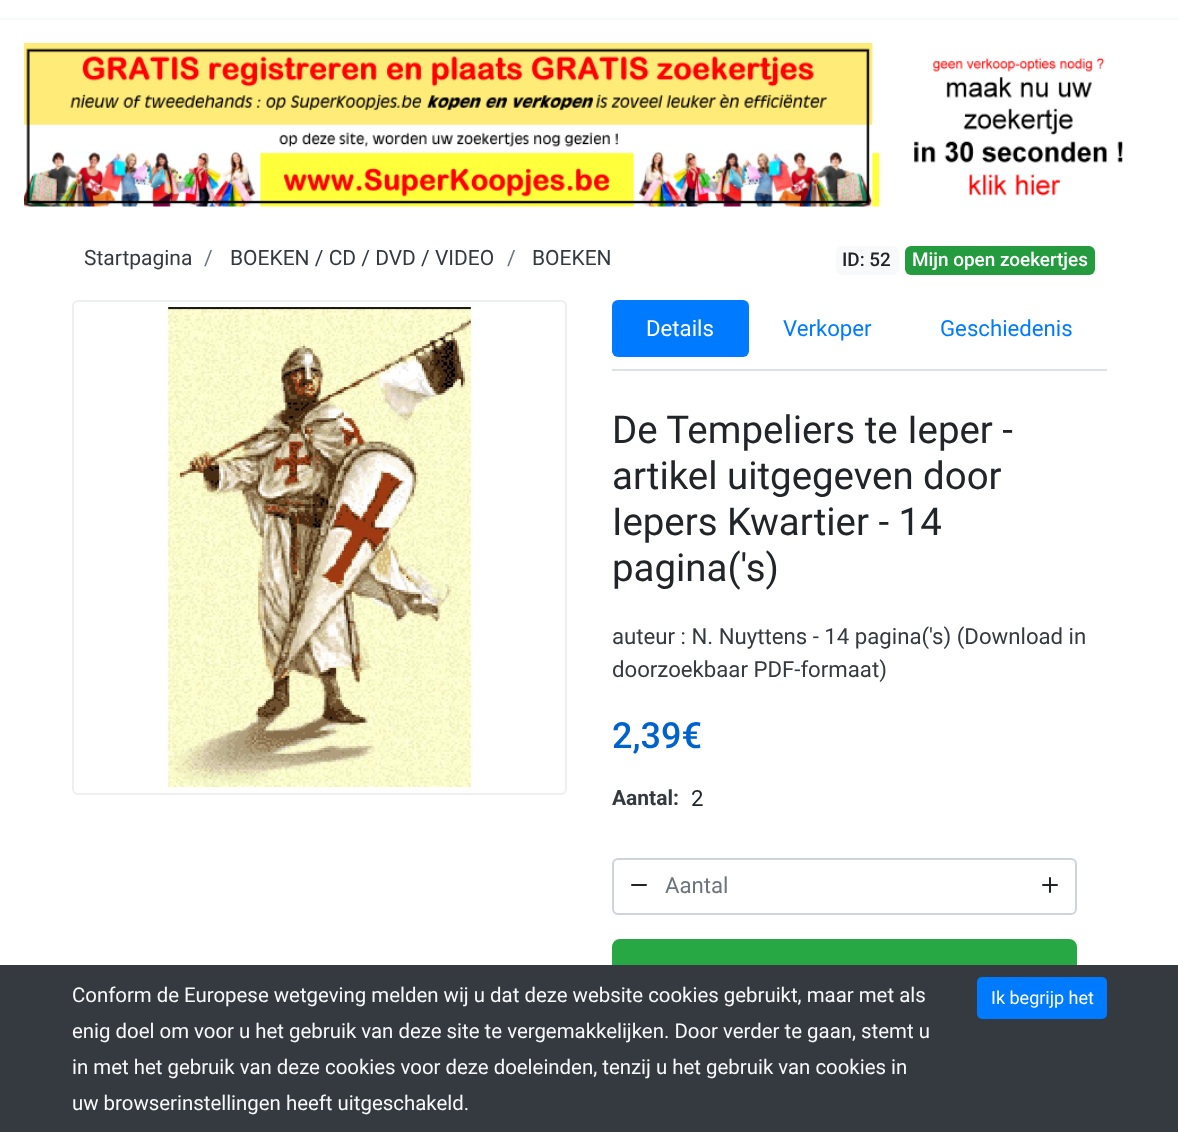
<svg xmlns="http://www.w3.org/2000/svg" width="1178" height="1132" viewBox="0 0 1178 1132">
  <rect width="100%" height="100%" fill="#ffffff"/>
  <rect x="0" y="18" width="1178" height="2" fill="#f8f9fa"/>
  <image x="24" y="43" width="1099" height="164" href="img1.png"/>
  <text x="84" y="265" font-family="Roboto" font-size="21" fill="#343a40">Startpagina</text>
  <text x="204" y="265" font-family="Roboto" font-size="21" fill="#6c757d">/</text>
  <text x="230" y="265" font-family="Roboto" font-size="21" fill="#343a40">BOEKEN / CD / DVD / VIDEO</text>
  <text x="507" y="265" font-family="Roboto" font-size="21" fill="#6c757d">/</text>
  <text x="532" y="265" font-family="Roboto" font-size="21" fill="#343a40">BOEKEN</text>
  <rect x="836" y="246" width="63" height="29" rx="6" fill="#f8f9fa"/>
  <text x="842" y="266" font-family="Roboto" font-size="18.9" font-weight="500" fill="#212529">ID: 52</text>
  <rect x="905" y="246" width="190" height="29" rx="6" fill="#259b40"/>
  <text x="912" y="266" font-family="Roboto" font-size="18.9" font-weight="500" fill="#ffffff">Mijn open zoekertjes</text>
  <rect x="73" y="301" width="493" height="493" rx="5" fill="none" stroke="#eeeff0" stroke-width="2"/>
  <image x="166" y="307" width="307" height="480" href="img2.png"/>
  <rect x="612" y="369" width="495" height="2" fill="#dee2e6"/>
  <rect x="612" y="300" width="137" height="57" rx="6" fill="#007bff"/>
  <text x="646" y="336" font-family="Roboto" font-size="22.2" fill="#ffffff">Details</text>
  <text x="783" y="336" font-family="Roboto" font-size="22.2" fill="#007bff">Verkoper</text>
  <text x="940" y="336" font-family="Roboto" font-size="22.2" fill="#007bff">Geschiedenis</text>
  <text x="612" y="443" font-family="Roboto" font-size="38.4" fill="#212529">De Tempeliers te Ieper -</text>
  <text x="612" y="489" font-family="Roboto" font-size="38.4" fill="#212529">artikel uitgegeven door</text>
  <text x="612" y="535" font-family="Roboto" font-size="38.4" fill="#212529">Iepers Kwartier - 14</text>
  <text x="612" y="581" font-family="Roboto" font-size="38.4" fill="#212529">pagina('s)</text>
  <text x="612" y="644" font-family="Roboto" font-size="22.2" fill="#343a40">auteur : N. Nuyttens - 14 pagina('s) (Download in</text>
  <text x="612" y="677" font-family="Roboto" font-size="22.2" fill="#343a40">doorzoekbaar PDF-formaat)</text>
  <text x="612" y="748" font-family="Roboto" font-size="36" font-weight="500" fill="#0062cc">2,39€</text>
  <text x="612" y="805" font-family="Roboto" font-size="21" font-weight="bold" fill="#343a40">Aantal:</text>
  <text x="691" y="806" font-family="Roboto" font-size="22.2" fill="#212529">2</text>
  <rect x="613" y="859" width="463" height="55" rx="5" fill="none" stroke="#ced4da" stroke-width="2"/>
  <path d="M632 885H646" fill="none" stroke="#212529" stroke-width="2" stroke-linecap="round" stroke-linejoin="round"/>
  <text x="665" y="893" font-family="Roboto" font-size="22.2" fill="#6c757d">Aantal</text>
  <path d="M1050 878V892M1043 885H1057" fill="none" stroke="#212529" stroke-width="2" stroke-linecap="round" stroke-linejoin="round"/>
  <rect x="613" y="940" width="463" height="64" rx="7" fill="#28a745" stroke="#28a745" stroke-width="2"/>
  <rect x="0" y="965" width="1178" height="167" fill="#343a40"/>
  <text x="72" y="1002" font-family="Roboto" font-size="20.4" fill="#f8f9fa">Conform de Europese wetgeving melden wij u dat deze website cookies gebruikt, maar met als</text>
  <text x="72" y="1038" font-family="Roboto" font-size="20.4" fill="#f8f9fa">enig doel om voor u het gebruik van deze site te vergemakkelijken. Door verder te gaan, stemt u</text>
  <text x="72" y="1074" font-family="Roboto" font-size="20.4" fill="#f8f9fa">in met het gebruik van deze cookies voor deze doeleinden, tenzij u het gebruik van cookies in</text>
  <text x="72" y="1110" font-family="Roboto" font-size="20.4" fill="#f8f9fa">uw browserinstellingen heeft uitgeschakeld.</text>
  <rect x="978" y="978" width="128" height="40" rx="4" fill="#007bff" stroke="#007bff" stroke-width="2"/>
  <text x="991" y="1004" font-family="Roboto" font-size="18" fill="#ffffff">Ik begrijp het</text>
</svg>
